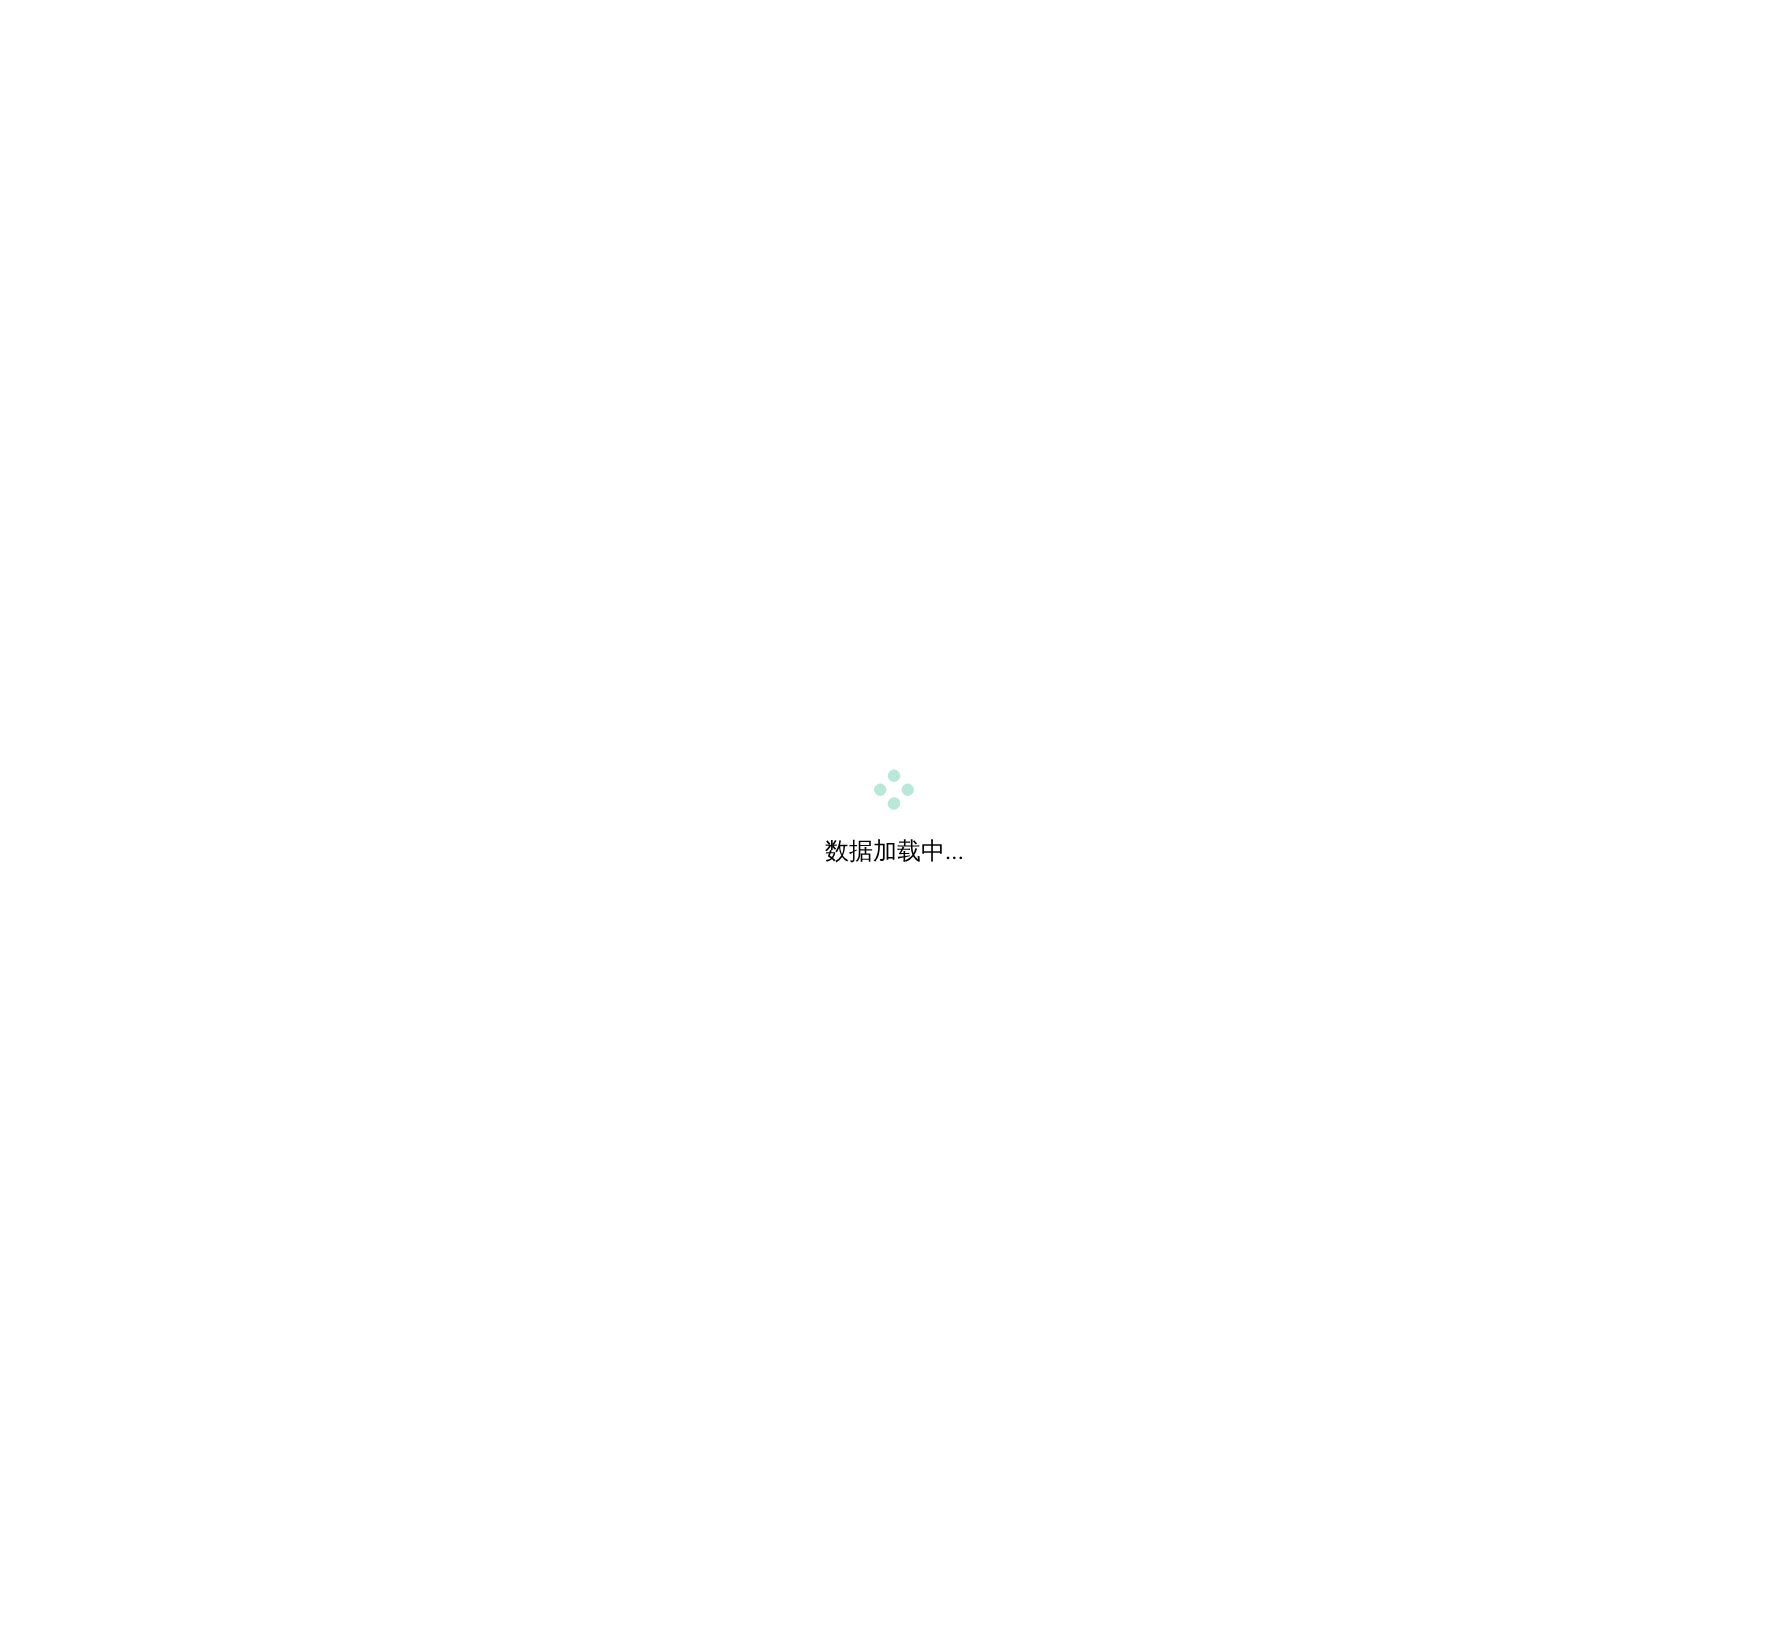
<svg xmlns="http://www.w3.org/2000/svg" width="1788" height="1641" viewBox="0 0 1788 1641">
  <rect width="100%" height="100%" fill="#ffffff"/>
  <path d="M898.5 771.5C904 777 895.5 786 889.5 780C884 774.5 892.5 765.5 898.5 771.5ZM912 785.5C918 791 909 800 903.5 794C897.5 788.5 906.5 779.5 912 785.5ZM898.5 799C904 805 895.5 813.5 889.5 808C884 802 892.5 793.5 898.5 799ZM884.5 785.5C890.5 791 881.5 800 876 794C870 788.5 879 779.5 884.5 785.5Z" fill="#bbe7da"/>
  <text x="825" y="859" font-family="WenQuanYi Zen Hei" font-size="24" font-weight="500" fill="#000000">数据加载中</text>
  <text x="945" y="859" font-family="Roboto" font-size="24" fill="#000000">...</text>
</svg>
